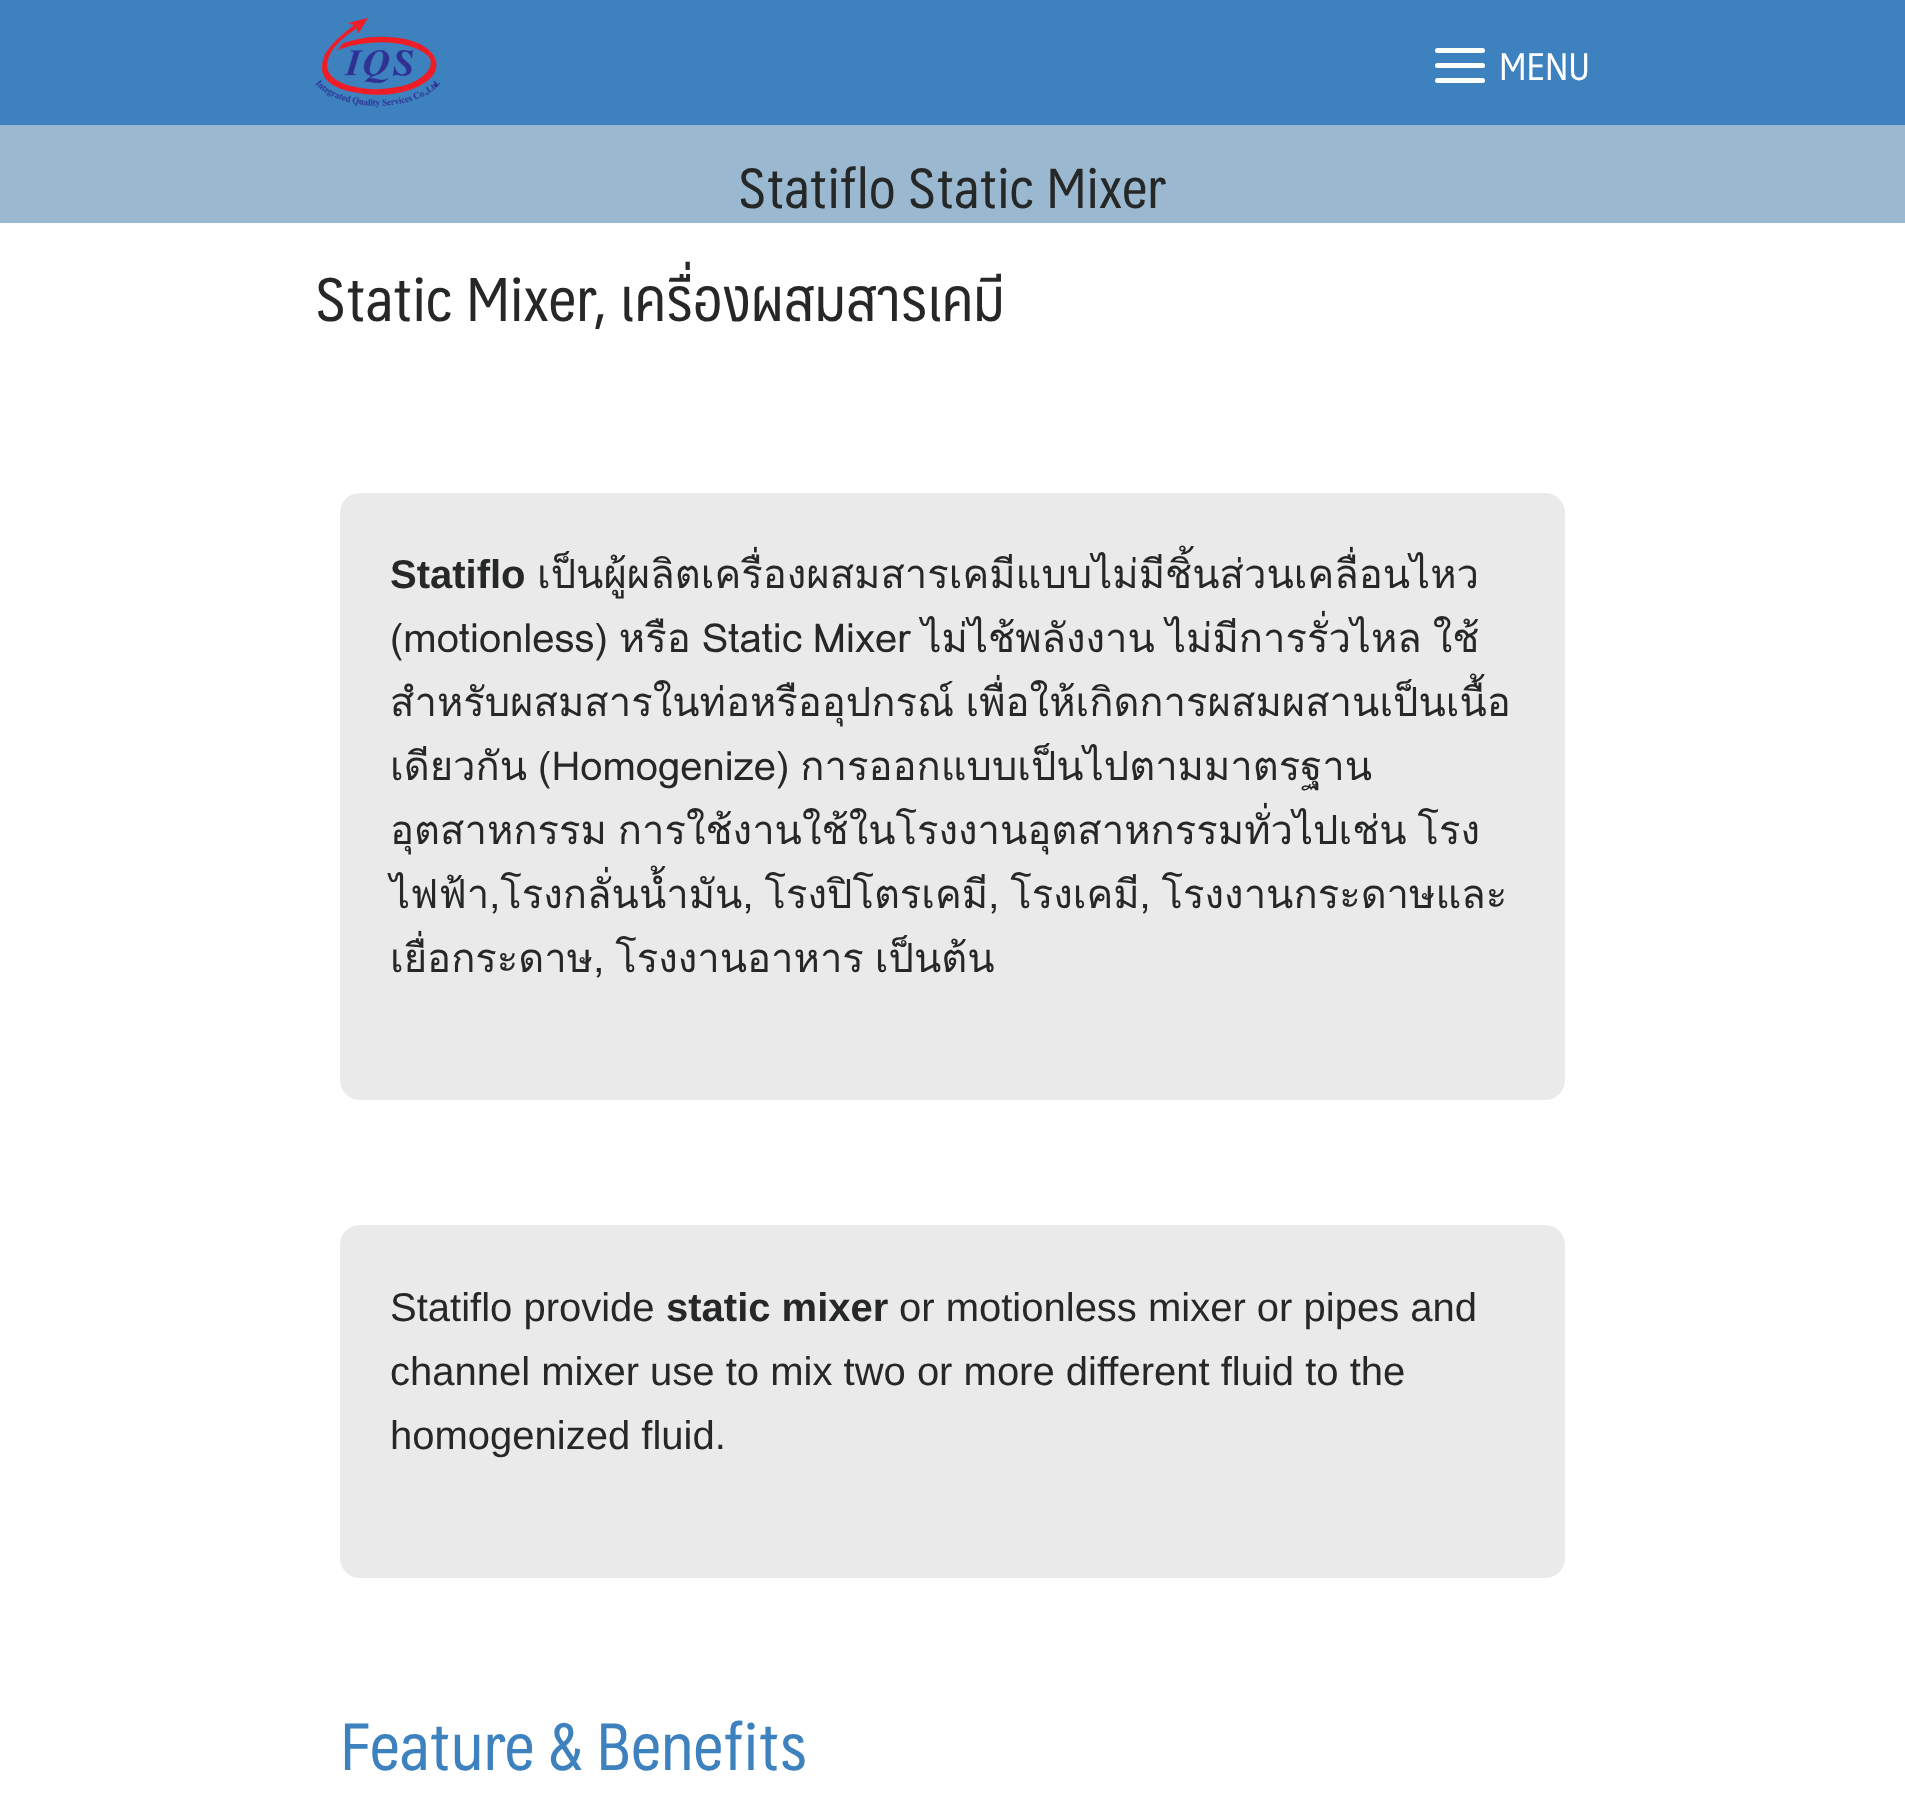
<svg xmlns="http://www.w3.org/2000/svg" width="1905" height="1804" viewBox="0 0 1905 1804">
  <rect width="100%" height="100%" fill="#ffffff"/>
  <rect x="0" y="0" width="1905" height="125" fill="#3d82bf"/>
  <image x="315" y="17" width="125" height="91" href="img1.png"/>
  <rect x="1435" y="48" width="50" height="5" rx="2.5" fill="#ffffff"/>
  <rect x="1435" y="63" width="50" height="5" rx="2.5" fill="#ffffff"/>
  <rect x="1435" y="78" width="50" height="5" rx="2.5" fill="#ffffff"/>
  <text x="1499" y="80" font-family="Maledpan" font-size="37.5" fill="#ffffff">MENU</text>
  <rect x="0" y="125" width="1905" height="98" fill="#9bb8d1"/>
  <text x="738" y="208" font-family="Maledpan" font-size="55" fill="#262828">Statiflo Static Mixer</text>
  <text x="315" y="321" font-family="Maledpan" font-size="60" fill="#262828">Static Mixer, เครื่องผสมสารเคมี</text>
  <rect x="340" y="493" width="1225" height="607" rx="20" fill="#eaeaea"/>
  <text x="390" y="588" font-family="Liberation Sans" font-size="40" font-weight="bold" fill="#262828">Statiflo</text>
  <text x="537" y="588" font-family="Loma" font-size="40" fill="#262828">เป็นผู้ผลิตเครื่องผสมสารเคมีแบบไม่มีชิ้นส่วนเคลื่อนไหว</text>
  <text x="390" y="652" word-spacing="-2.5" font-family="Loma" font-size="40" fill="#262828">(motionless) หรือ Static Mixer ไม่ไช้พลังงาน ไม่มีการรั่วไหล ใช้</text>
  <text x="390" y="716" word-spacing="-2" font-family="Loma" font-size="40" fill="#262828">สำหรับผสมสารในท่อหรืออุปกรณ์ เพื่อให้เกิดการผสมผสานเป็นเนื้อ</text>
  <text x="390" y="780" word-spacing="-2.5" font-family="Loma" font-size="40" fill="#262828">เดียวกัน (Homogenize) การออกแบบเป็นไปตามมาตรฐาน</text>
  <text x="390" y="844" word-spacing="-2.5" font-family="Loma" font-size="40" fill="#262828">อุตสาหกรรม การใช้งานใช้ในโรงงานอุตสาหกรรมทั่วไปเช่น โรง</text>
  <text x="390" y="908" word-spacing="-2.5" font-family="Loma" font-size="40" fill="#262828">ไฟฟ้า,โรงกลั่นน้ำมัน, โรงปิโตรเคมี, โรงเคมี, โรงงานกระดาษและ</text>
  <text x="390" y="972" word-spacing="-2.5" font-family="Loma" font-size="40" fill="#262828">เยื่อกระดาษ, โรงงานอาหาร เป็นต้น</text>
  <rect x="340" y="1225" width="1225" height="353" rx="20" fill="#eaeaea"/>
  <text x="390" y="1321" font-family="Liberation Sans" font-size="40" fill="#262828">Statiflo provide</text>
  <text x="666" y="1321" font-family="Liberation Sans" font-size="40" font-weight="bold" fill="#262828">static mixer</text>
  <text x="899" y="1321" font-family="Liberation Sans" font-size="40" fill="#262828">or motionless mixer or pipes and</text>
  <text x="390" y="1385" font-family="Liberation Sans" font-size="40" fill="#262828">channel mixer use to mix two or more different fluid to the</text>
  <text x="390" y="1449" font-family="Liberation Sans" font-size="40" fill="#262828">homogenized fluid.</text>
  <text x="340" y="1770" font-family="Maledpan" font-size="65" fill="#3d82bf">Feature &amp; Benefits</text>
</svg>
